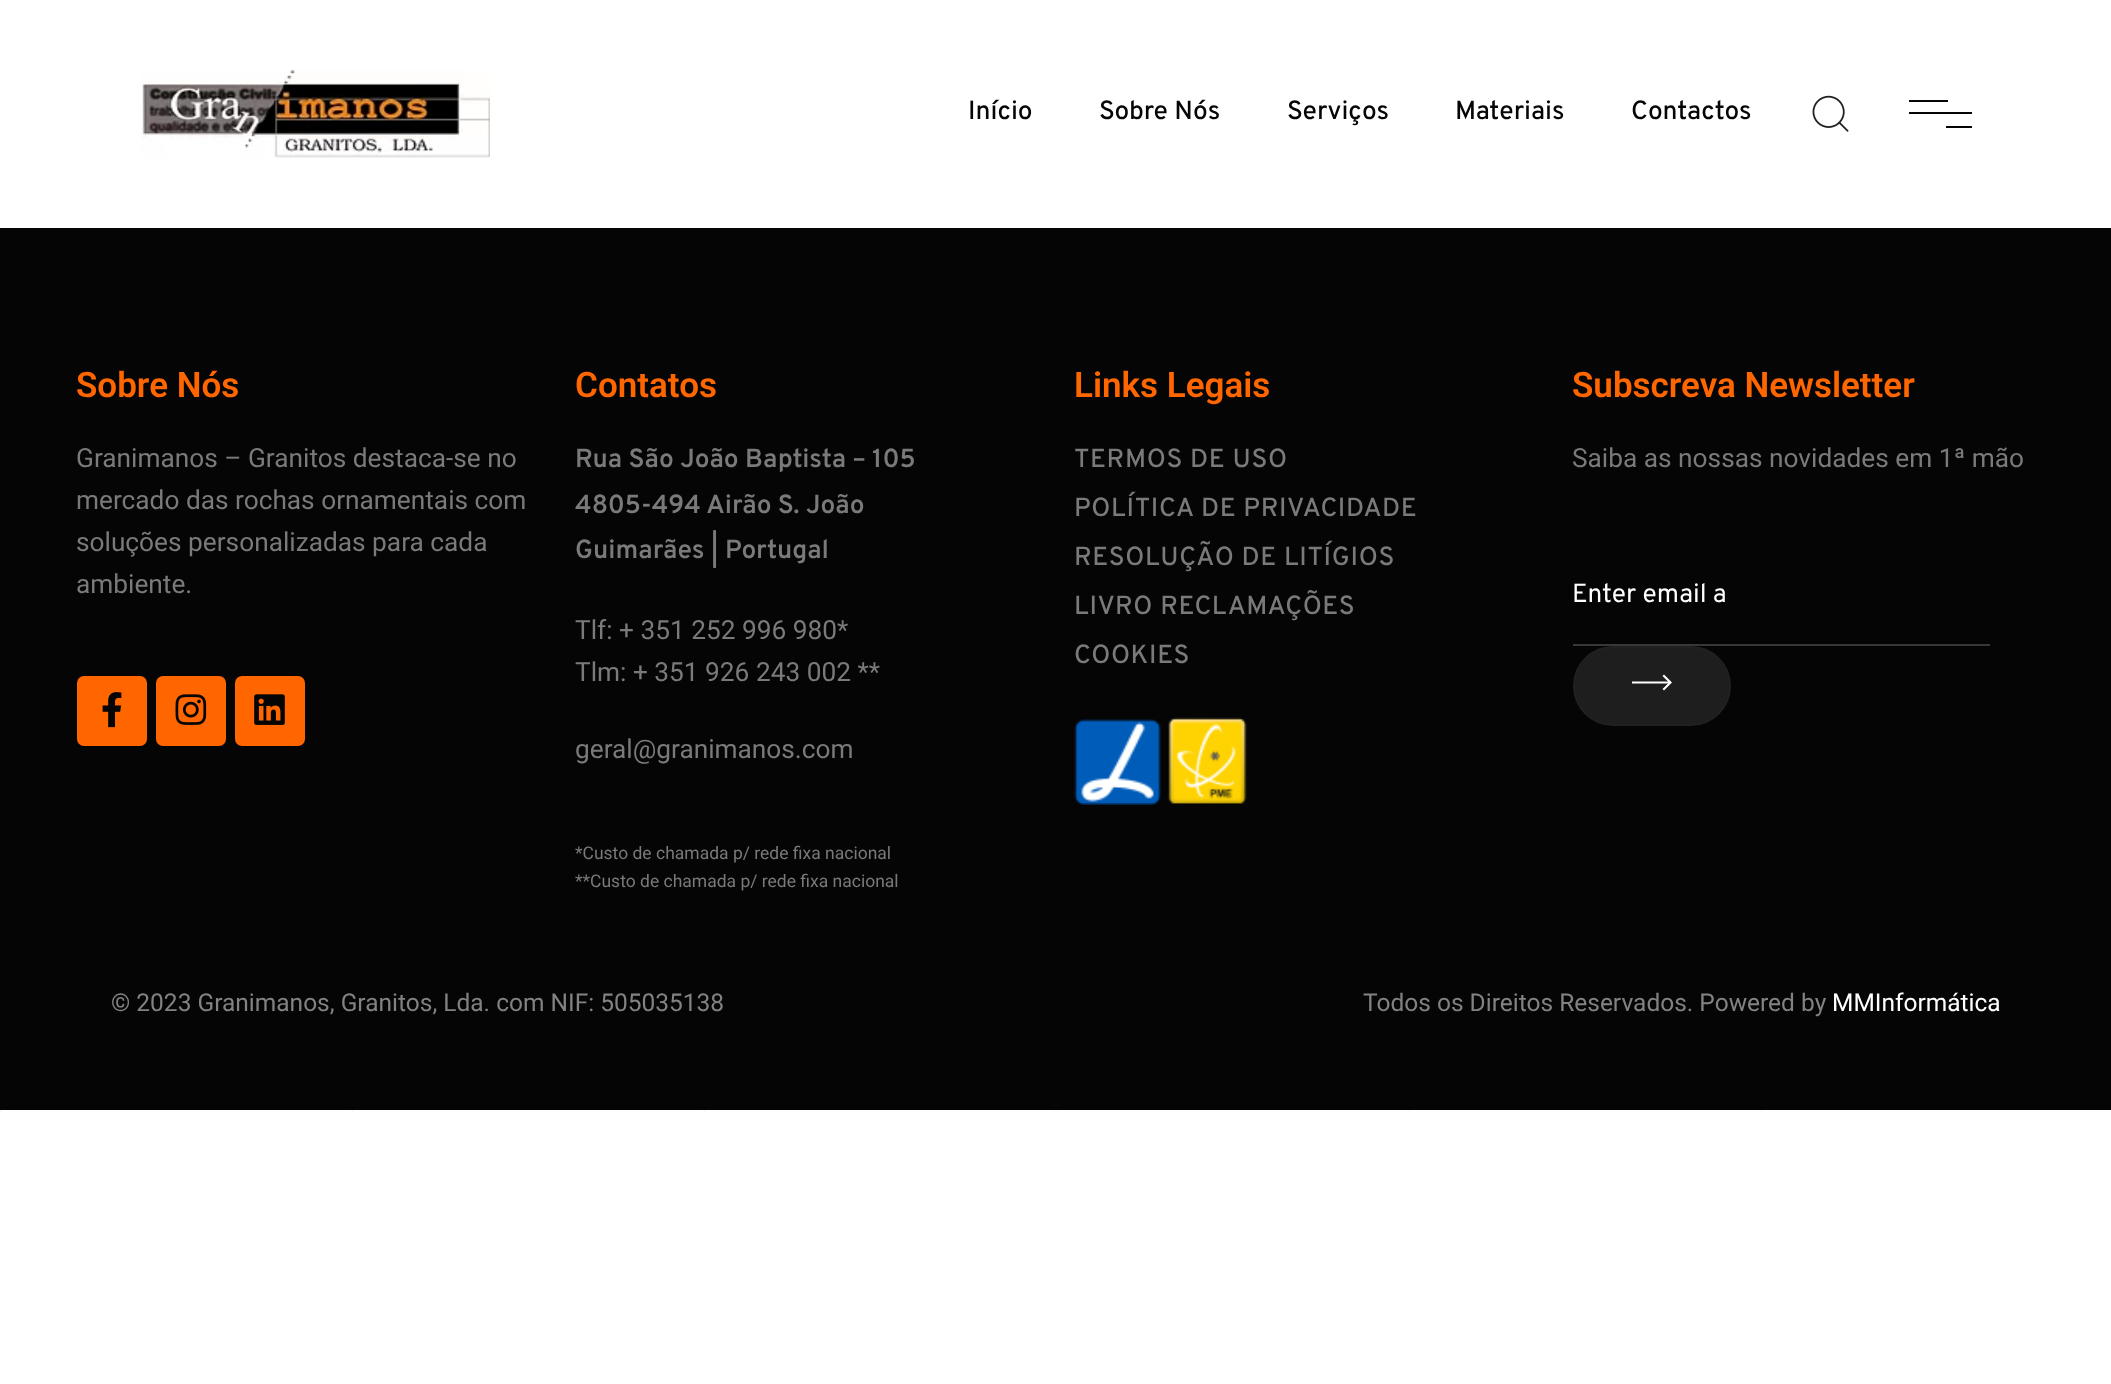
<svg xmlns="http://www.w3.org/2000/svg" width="2111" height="1384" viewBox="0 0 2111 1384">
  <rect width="100%" height="100%" fill="#ffffff"/>
  <path d="M1 0V1113" fill="none" stroke="#f4f4f4" stroke-width="1.8" stroke-dasharray="5.25 3.46"/>
  <path d="M352.5 0V1113" fill="none" stroke="#f4f4f4" stroke-width="1.8" stroke-dasharray="5.25 3.46"/>
  <path d="M704.5 0V1113" fill="none" stroke="#f4f4f4" stroke-width="1.8" stroke-dasharray="5.25 3.46"/>
  <path d="M1056 0V1113" fill="none" stroke="#f4f4f4" stroke-width="1.8" stroke-dasharray="5.25 3.46"/>
  <path d="M1409.5 0V1113" fill="none" stroke="#f4f4f4" stroke-width="1.8" stroke-dasharray="5.25 3.46"/>
  <path d="M1761.5 0V1113" fill="none" stroke="#f4f4f4" stroke-width="1.8" stroke-dasharray="5.25 3.46"/>
  <rect x="0" y="0" width="1763" height="228" fill="#ffffff"/>
  <image x="140" y="70" width="350" height="88" href="img1.png"/>
  <text x="968" y="119" font-family="Overpass" font-size="26.25" font-weight="500" fill="#050505">Início</text>
  <text x="1099" y="119" font-family="Overpass" font-size="26.25" font-weight="500" fill="#050505">Sobre Nós</text>
  <text x="1287" y="119" font-family="Overpass" font-size="26.25" font-weight="500" fill="#050505">Serviços</text>
  <text x="1455" y="119" font-family="Overpass" font-size="26.25" font-weight="500" fill="#050505">Materiais</text>
  <text x="1631" y="119" font-family="Overpass" font-size="26.25" font-weight="500" fill="#050505">Contactos</text>
  <image x="1812" y="95" width="37" height="37" href="img2.png"/>
  <rect x="1909" y="100" width="39" height="2" fill="#050505"/>
  <rect x="1909" y="112" width="63" height="2" fill="#050505"/>
  <rect x="1946" y="126" width="26" height="2" fill="#050505"/>
  <rect x="0" y="228" width="2111" height="882" fill="#050505"/>
  <text x="76" y="397" font-family="Roboto" font-size="35" font-weight="600" fill="#ff6600">Sobre Nós</text>
  <text x="76" y="467" font-family="Roboto" font-size="26.25" fill="#7a7a7a">Granimanos – Granitos destaca-se no</text>
  <text x="76" y="509" font-family="Roboto" font-size="26.25" fill="#7a7a7a">mercado das rochas ornamentais com</text>
  <text x="76" y="551" font-family="Roboto" font-size="26.25" fill="#7a7a7a">soluções personalizadas para cada</text>
  <text x="76" y="593" font-family="Roboto" font-size="26.25" fill="#7a7a7a">ambiente.</text>
  <rect x="77" y="676" width="70" height="70" rx="7" fill="#ff6600"/>
  <image x="102" y="692" width="20" height="36" href="img3.png"/>
  <rect x="156" y="676" width="70" height="70" rx="7" fill="#ff6600"/>
  <image x="175" y="694" width="32" height="31" href="img4.png"/>
  <rect x="235" y="676" width="70" height="70" rx="7" fill="#ff6600"/>
  <image x="254" y="694" width="31" height="31" href="img5.png"/>
  <text x="575" y="397" font-family="Roboto" font-size="35" font-weight="600" fill="#ff6600">Contatos</text>
  <text x="575" y="467" font-family="Overpass" font-size="26.25" font-weight="600" fill="#7a7a7a">Rua São João Baptista – 105</text>
  <text x="575" y="513" font-family="Overpass" font-size="26.25" font-weight="600" fill="#7a7a7a">4805-494 Airão S. João</text>
  <text x="575" y="558" font-family="Overpass" font-size="26.25" font-weight="600" fill="#7a7a7a">Guimarães | Portugal</text>
  <text x="575" y="639" font-family="Roboto" font-size="26.25" fill="#7a7a7a">Tlf: + 351 252 996 980*</text>
  <text x="575" y="681" font-family="Roboto" font-size="26.25" fill="#7a7a7a">Tlm: + 351 926 243 002 **</text>
  <text x="575" y="758" font-family="Roboto" font-size="26.25" fill="#7a7a7a">geral@granimanos.com</text>
  <text x="575" y="859" font-family="Roboto" font-size="17.5" fill="#7a7a7a">*Custo de chamada p/ rede fixa nacional</text>
  <text x="575" y="887" font-family="Roboto" font-size="17.5" fill="#7a7a7a">**Custo de chamada p/ rede fixa nacional</text>
  <text x="1074" y="397" font-family="Roboto" font-size="35" font-weight="600" fill="#ff6600">Links Legais</text>
  <text x="1074" y="467" font-family="Overpass" font-size="26.25" font-weight="500" letter-spacing="0.7" fill="#7a7a7a">TERMOS DE USO</text>
  <text x="1074" y="516" font-family="Overpass" font-size="26.25" font-weight="500" letter-spacing="0.7" fill="#7a7a7a">POLÍTICA DE PRIVACIDADE</text>
  <text x="1074" y="565" font-family="Overpass" font-size="26.25" font-weight="500" letter-spacing="0.7" fill="#7a7a7a">RESOLUÇÃO DE LITÍGIOS</text>
  <text x="1074" y="614" font-family="Overpass" font-size="26.25" font-weight="500" letter-spacing="0.7" fill="#7a7a7a">LIVRO RECLAMAÇÕES</text>
  <text x="1074" y="663" font-family="Overpass" font-size="26.25" font-weight="500" letter-spacing="0.7" fill="#7a7a7a">COOKIES</text>
  <image x="1074" y="717" width="173" height="88" href="img6.png"/>
  <text x="1572" y="397" font-family="Roboto" font-size="35" font-weight="600" fill="#ff6600">Subscreva Newsletter</text>
  <text x="1572" y="467" font-family="Roboto" font-size="26.25" fill="#7a7a7a">Saiba as nossas novidades em 1ª mão</text>
  <rect x="1573" y="644" width="417" height="2" fill="#373737"/>
  <text x="1572" y="602" font-family="Overpass" font-size="26.25" fill="#ffffff">Enter email a</text>
  <rect x="1574" y="647" width="156" height="78" rx="39" fill="#1e1e1e" stroke="#212121" stroke-width="2"/>
  <path d="M1632 682.5H1670.5" fill="none" stroke="#ffffff" stroke-width="2.1"/>
  <path d="M1664 676L1670.5 682.5L1664 689" fill="none" stroke="#ffffff" stroke-width="2.1" stroke-linecap="square"/>
  <text x="111" y="1011" font-family="Roboto" font-size="24.5" fill="#828282">© 2023 Granimanos, Granitos, Lda. com NIF: 505035138</text>
  <text x="1363" y="1011" font-family="Roboto" font-size="24.5" fill="#828282">Todos os Direitos Reservados. Powered by</text>
  <text x="1832" y="1011" font-family="Roboto" font-size="24.5" fill="#ffffff">MMInformática</text>
</svg>
